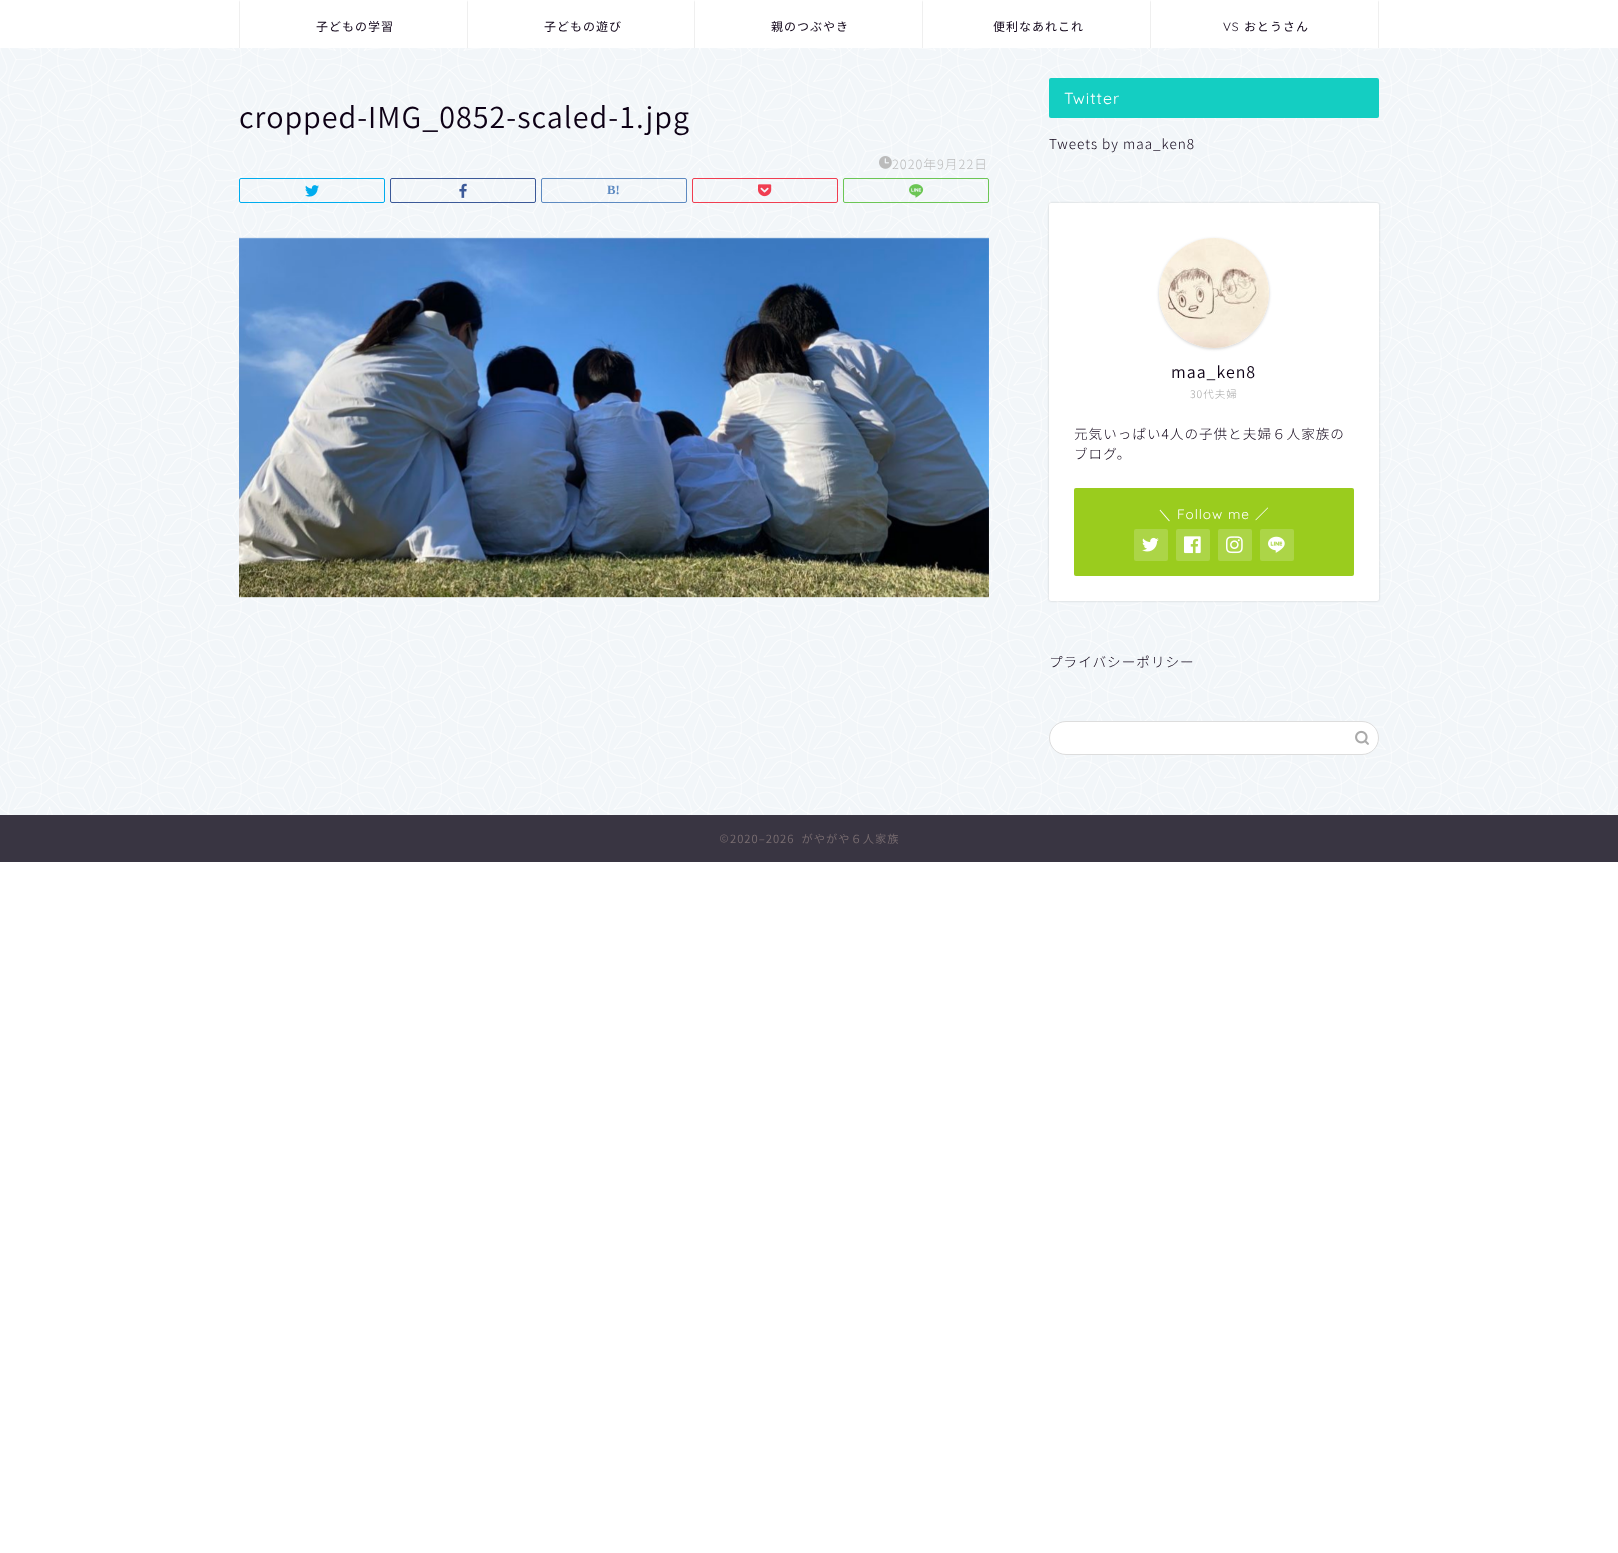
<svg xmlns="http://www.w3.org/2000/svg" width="1618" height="1553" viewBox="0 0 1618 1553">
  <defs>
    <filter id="blur1" x="-50%" y="-200%" width="200%" height="500%"><feGaussianBlur stdDeviation="1"/></filter>
    <filter id="blur2" x="-50%" y="-200%" width="200%" height="500%"><feGaussianBlur stdDeviation="1.5"/></filter>
  </defs>
  <rect width="100%" height="100%" fill="#ffffff"/>
  <rect x="0" y="48" width="1618" height="767" fill="#f2f6f9"/>
  <image x="0" y="48" width="1618" height="767" href="img1.png"/>
  <path d="M239 48V0L240 2V48Z" fill="#efefef"/>
  <text x="316" y="31" font-family="Noto Sans JP" font-size="12" letter-spacing="1" fill="#0d0015">子どもの学習</text>
  <path d="M467 48V0L468 2V48Z" fill="#efefef"/>
  <text x="544" y="31" font-family="Noto Sans JP" font-size="12" letter-spacing="1" fill="#0d0015">子どもの遊び</text>
  <path d="M694 48V0L695 2V48Z" fill="#efefef"/>
  <text x="771" y="31" font-family="Noto Sans JP" font-size="12" letter-spacing="1" fill="#0d0015">親のつぶやき</text>
  <path d="M922 48V0L923 2V48Z" fill="#efefef"/>
  <text x="993" y="31" font-family="Noto Sans JP" font-size="12" letter-spacing="1" fill="#0d0015">便利なあれこれ</text>
  <path d="M1379 0V48H1378V2Z" fill="#efefef"/>
  <path d="M1150 48V0L1151 2V48Z" fill="#efefef"/>
  <text x="1223" y="31" font-family="Quicksand" font-size="12" font-weight="300" letter-spacing="1" fill="#0d0015">VS</text>
  <text x="1244" y="31" font-family="Noto Sans JP" font-size="12" letter-spacing="1" fill="#0d0015">おとうさん</text>
  <text x="239" y="128" font-family="Noto Sans JP" font-size="28.75" font-weight="300" letter-spacing="1" fill="#0d0015">cropped-IMG_0852-scaled-1.jpg</text>
  <image x="879" y="156" width="13" height="13" href="img2.png"/>
  <text x="892" y="169" font-family="'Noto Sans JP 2'" font-size="12.75" font-weight="300" letter-spacing="1" fill="#bbbbbb">2020年9月22日</text>
  <rect x="239.5" y="178.5" width="145" height="24" rx="1.5" fill="none" stroke="#00acee"/>
  <image x="305" y="185" width="14" height="12" href="img3.png"/>
  <rect x="390.5" y="178.5" width="145" height="24" rx="1.5" fill="none" stroke="#3b5998"/>
  <image x="459" y="183" width="8" height="15" href="img4.png"/>
  <rect x="541.5" y="178.5" width="145" height="24" rx="1.5" fill="none" stroke="#5d8ac1"/>
  <text x="607" y="194" font-family="Liberation Serif" font-size="12.75" font-weight="bold" fill="#5d8ac1">B!</text>
  <rect x="692.5" y="178.5" width="145" height="24" rx="1.5" fill="none" stroke="#f03e51"/>
  <image x="758" y="184" width="14" height="13" href="img5.png"/>
  <rect x="843.5" y="178.5" width="145" height="24" rx="1.5" fill="none" stroke="#6cc655"/>
  <image x="909" y="184" width="15" height="14" href="img6.png"/>
  <image x="239" y="237" width="750" height="361" href="img7.png"/>
  <rect x="1049" y="78" width="330" height="40" rx="2" fill="#14cec2"/>
  <text x="1064" y="104" font-family="Quicksand" font-size="16" font-weight="300" letter-spacing="1" fill="#ffffff">Twitter</text>
  <text x="1049" y="149" font-family="'Noto Sans JP 2'" font-size="13.6" font-weight="300" letter-spacing="1" fill="#0d0015">Tweets by maa_ken8</text>
  <rect x="1049" y="203" width="330" height="398" rx="2" fill="#000000" fill-opacity="0.18" filter="url(#blur1)"/>
  <rect x="1049" y="203" width="330" height="398" rx="2" fill="#ffffff"/>
  <rect x="1159" y="239" width="110" height="110" rx="55" fill="#000000" fill-opacity="0.18" filter="url(#blur2)"/>
  <circle cx="1214" cy="293" r="55" fill="#ffffff"/>
  <image x="1159" y="238" width="110" height="110" href="img8.png"/>
  <text x="1171" y="378" font-family="Noto Sans JP" font-size="16" font-weight="300" letter-spacing="1" fill="#0d0015">maa_ken8</text>
  <text x="1190" y="398" font-family="'Noto Sans JP 2'" font-size="10.5" font-weight="300" letter-spacing="1" fill="#a6a6a6">30代夫婦</text>
  <text x="1074" y="439" font-family="'Noto Sans JP 2'" font-size="13.6" font-weight="300" letter-spacing="1" fill="#0d0015">元気いっぱい4人の子供と夫婦６人家族の</text>
  <text x="1074" y="459" font-family="'Noto Sans JP 2'" font-size="13.6" font-weight="300" letter-spacing="1" fill="#0d0015">ブログ。</text>
  <rect x="1074" y="488" width="280" height="88" rx="2" fill="#9acc1e"/>
  <text x="1158" y="519" font-family="WenQuanYi Zen Hei" font-size="13.6" font-weight="500" letter-spacing="1" fill="#ffffff">＼</text>
  <text x="1177" y="519" font-family="Quicksand" font-size="13.6" font-weight="300" letter-spacing="1" fill="#ffffff">Follow me</text>
  <text x="1255" y="519" font-family="Noto Sans JP" font-size="13.6" letter-spacing="1" fill="#ffffff">／</text>
  <rect x="1134" y="529" width="34" height="32" rx="2" fill="#acd547"/>
  <image x="1142" y="537" width="17" height="15" href="img9.png"/>
  <rect x="1176" y="529" width="34" height="32" rx="2" fill="#acd547"/>
  <image x="1184" y="536" width="17" height="18" href="img10.png"/>
  <rect x="1218" y="529" width="34" height="32" rx="2" fill="#acd547"/>
  <image x="1226" y="536" width="17" height="18" href="img11.png"/>
  <rect x="1260" y="529" width="34" height="32" rx="2" fill="#acd547"/>
  <image x="1268" y="536" width="17" height="17" href="img12.png"/>
  <text x="1049" y="667" font-family="'Noto Sans JP 2'" font-size="13.6" font-weight="300" letter-spacing="1" fill="#0d0015">プライバシーポリシー</text>
  <rect x="1049.5" y="721.5" width="329" height="33" rx="16.5" fill="#ffffff" stroke="#dddddd"/>
  <image x="1355" y="730" width="14" height="15" href="img13.png"/>
  <rect x="0" y="815" width="1618" height="47" fill="#393542"/>
  <image x="720" y="834" width="8" height="9" href="img14.png"/>
  <text x="730" y="843" font-family="Noto Sans JP" font-size="11.25" font-weight="300" letter-spacing="1" fill="#7a6e71" xml:space="preserve">2020–2026  がやがや６人家族</text>
</svg>
